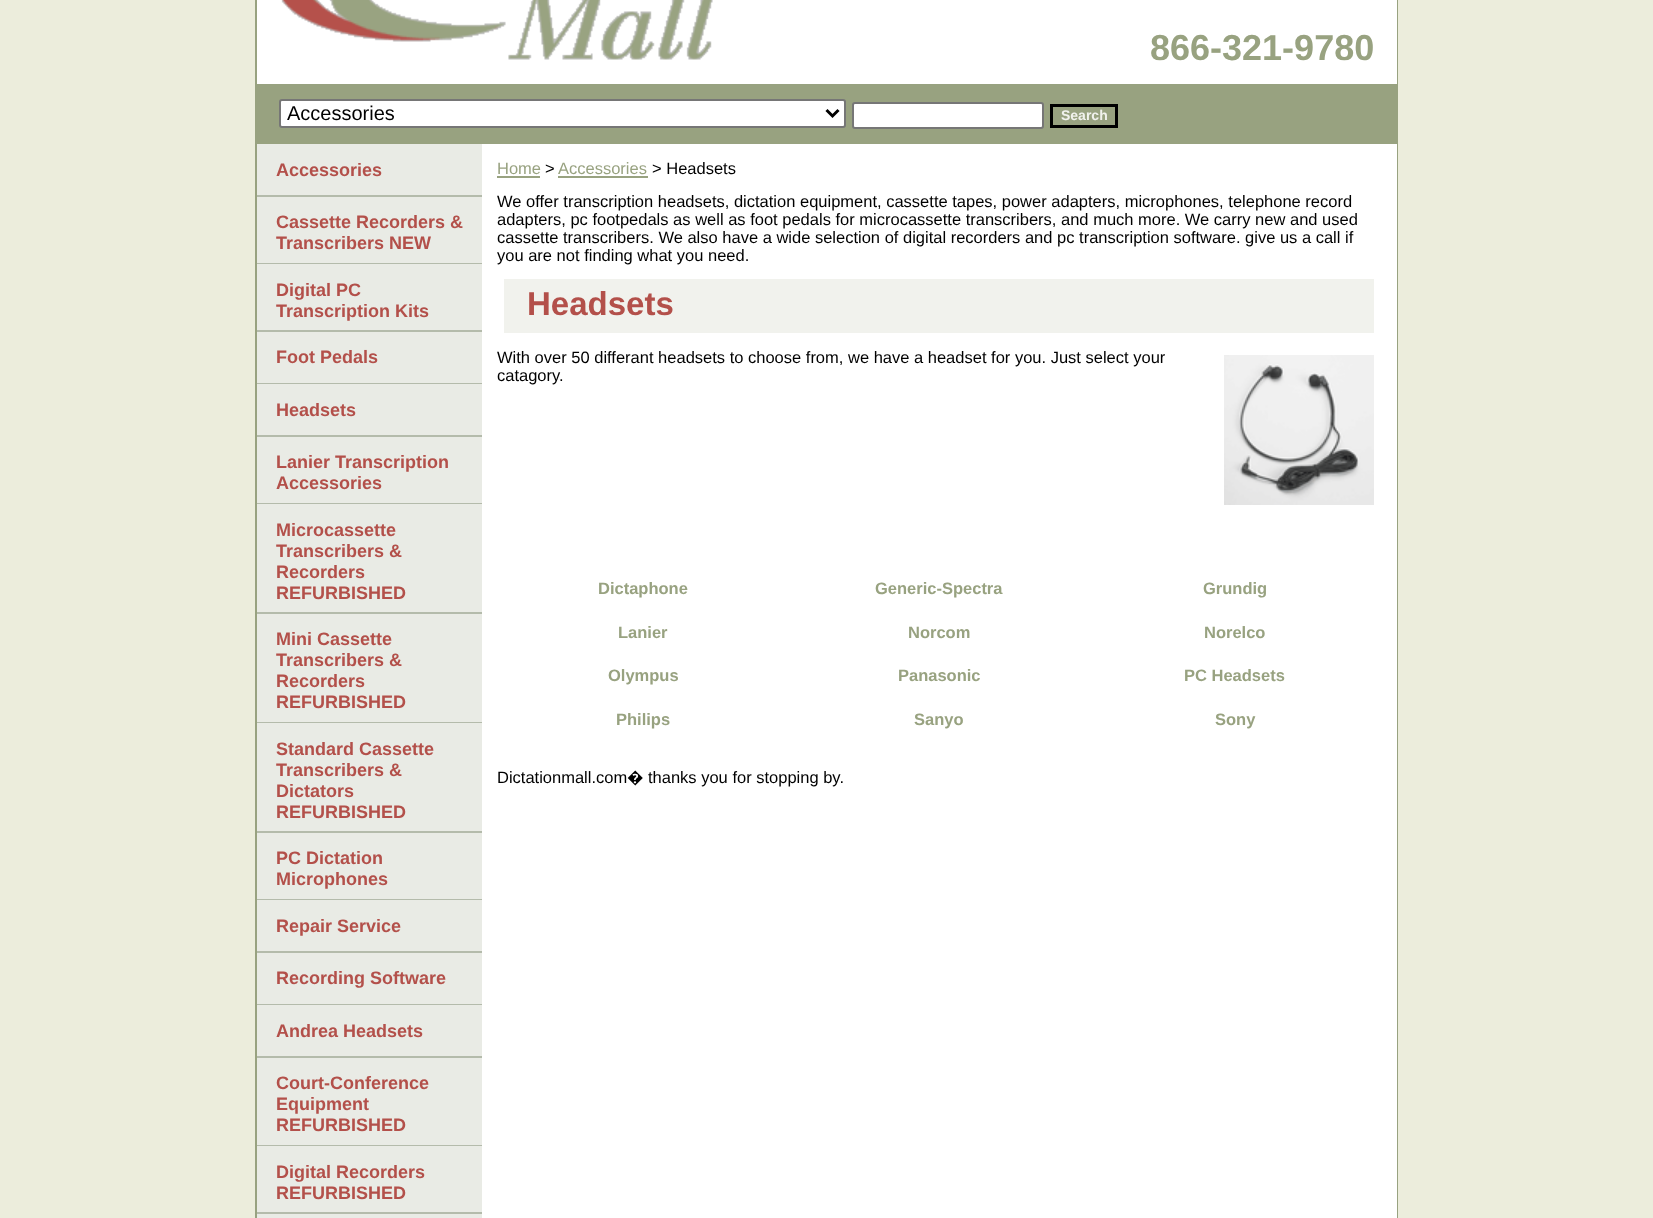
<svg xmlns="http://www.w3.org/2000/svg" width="1653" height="1218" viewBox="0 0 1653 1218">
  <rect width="100%" height="100%" fill="#eceddc"/>
  <rect x="256" y="-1" width="1141" height="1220" fill="none" stroke="#98a280" stroke-width="2"/>
  <rect x="257" y="0" width="1140" height="84" fill="#ffffff"/>
  <image x="281" y="0" width="432" height="60" href="img1.png"/>
  <text x="1150" y="60" font-family="Liberation Sans" font-size="36" font-weight="bold" fill="#98a280">866-321-9780</text>
  <rect x="257" y="84" width="1139" height="60" fill="#98a280"/>
  <rect x="280" y="100" width="565" height="27" rx="2" fill="#ffffff" stroke="#767676" stroke-width="2"/>
  <path d="M826.5 110L832.5 116L838.5 110" fill="none" stroke="#000000" stroke-width="3"/>
  <text x="287" y="120" font-family="Liberation Sans" font-size="20" fill="#000000">Accessories</text>
  <rect x="853" y="103" width="190" height="25" rx="2" fill="#ffffff" stroke="#767676" stroke-width="2"/>
  <rect x="1051.5" y="105.5" width="65" height="21" fill="none" stroke="#000000" stroke-width="3"/>
  <text x="1061" y="120" font-family="Liberation Sans" font-size="14" font-weight="bold" fill="#f1f2ed">Search</text>
  <rect x="482" y="144" width="915" height="1074" fill="#ffffff"/>
  <rect x="257" y="144" width="225" height="1074" fill="#e9ebe5"/>
  <rect x="257" y="195" width="225" height="2" fill="#b4bbab"/>
  <text x="276" y="176" font-family="Liberation Sans" font-size="18" font-weight="bold" fill="#b3504a">Accessories</text>
  <rect x="257" y="263" width="225" height="1" fill="#b4bbab"/>
  <text x="276" y="228" font-family="Liberation Sans" font-size="18" font-weight="bold" fill="#b3504a">Cassette Recorders &amp;</text>
  <text x="276" y="249" font-family="Liberation Sans" font-size="18" font-weight="bold" fill="#b3504a">Transcribers NEW</text>
  <rect x="257" y="330" width="225" height="2" fill="#b4bbab"/>
  <text x="276" y="296" font-family="Liberation Sans" font-size="18" font-weight="bold" fill="#b3504a">Digital PC</text>
  <text x="276" y="317" font-family="Liberation Sans" font-size="18" font-weight="bold" fill="#b3504a">Transcription Kits</text>
  <rect x="257" y="383" width="225" height="1" fill="#b4bbab"/>
  <text x="276" y="363" font-family="Liberation Sans" font-size="18" font-weight="bold" fill="#b3504a">Foot Pedals</text>
  <rect x="257" y="435" width="225" height="2" fill="#b4bbab"/>
  <text x="276" y="416" font-family="Liberation Sans" font-size="18" font-weight="bold" fill="#b3504a">Headsets</text>
  <rect x="257" y="503" width="225" height="1" fill="#b4bbab"/>
  <text x="276" y="468" font-family="Liberation Sans" font-size="18" font-weight="bold" fill="#b3504a">Lanier Transcription</text>
  <text x="276" y="489" font-family="Liberation Sans" font-size="18" font-weight="bold" fill="#b3504a">Accessories</text>
  <rect x="257" y="612" width="225" height="2" fill="#b4bbab"/>
  <text x="276" y="536" font-family="Liberation Sans" font-size="18" font-weight="bold" fill="#b3504a">Microcassette</text>
  <text x="276" y="557" font-family="Liberation Sans" font-size="18" font-weight="bold" fill="#b3504a">Transcribers &amp;</text>
  <text x="276" y="578" font-family="Liberation Sans" font-size="18" font-weight="bold" fill="#b3504a">Recorders</text>
  <text x="276" y="599" font-family="Liberation Sans" font-size="18" font-weight="bold" fill="#b3504a">REFURBISHED</text>
  <rect x="257" y="722" width="225" height="1" fill="#b4bbab"/>
  <text x="276" y="645" font-family="Liberation Sans" font-size="18" font-weight="bold" fill="#b3504a">Mini Cassette</text>
  <text x="276" y="666" font-family="Liberation Sans" font-size="18" font-weight="bold" fill="#b3504a">Transcribers &amp;</text>
  <text x="276" y="687" font-family="Liberation Sans" font-size="18" font-weight="bold" fill="#b3504a">Recorders</text>
  <text x="276" y="708" font-family="Liberation Sans" font-size="18" font-weight="bold" fill="#b3504a">REFURBISHED</text>
  <rect x="257" y="831" width="225" height="2" fill="#b4bbab"/>
  <text x="276" y="755" font-family="Liberation Sans" font-size="18" font-weight="bold" fill="#b3504a">Standard Cassette</text>
  <text x="276" y="776" font-family="Liberation Sans" font-size="18" font-weight="bold" fill="#b3504a">Transcribers &amp;</text>
  <text x="276" y="797" font-family="Liberation Sans" font-size="18" font-weight="bold" fill="#b3504a">Dictators</text>
  <text x="276" y="818" font-family="Liberation Sans" font-size="18" font-weight="bold" fill="#b3504a">REFURBISHED</text>
  <rect x="257" y="899" width="225" height="1" fill="#b4bbab"/>
  <text x="276" y="864" font-family="Liberation Sans" font-size="18" font-weight="bold" fill="#b3504a">PC Dictation</text>
  <text x="276" y="885" font-family="Liberation Sans" font-size="18" font-weight="bold" fill="#b3504a">Microphones</text>
  <rect x="257" y="951" width="225" height="2" fill="#b4bbab"/>
  <text x="276" y="932" font-family="Liberation Sans" font-size="18" font-weight="bold" fill="#b3504a">Repair Service</text>
  <rect x="257" y="1004" width="225" height="1" fill="#b4bbab"/>
  <text x="276" y="984" font-family="Liberation Sans" font-size="18" font-weight="bold" fill="#b3504a">Recording Software</text>
  <rect x="257" y="1056" width="225" height="2" fill="#b4bbab"/>
  <text x="276" y="1037" font-family="Liberation Sans" font-size="18" font-weight="bold" fill="#b3504a">Andrea Headsets</text>
  <rect x="257" y="1145" width="225" height="1" fill="#b4bbab"/>
  <text x="276" y="1089" font-family="Liberation Sans" font-size="18" font-weight="bold" fill="#b3504a">Court-Conference</text>
  <text x="276" y="1110" font-family="Liberation Sans" font-size="18" font-weight="bold" fill="#b3504a">Equipment</text>
  <text x="276" y="1131" font-family="Liberation Sans" font-size="18" font-weight="bold" fill="#b3504a">REFURBISHED</text>
  <rect x="257" y="1212" width="225" height="2" fill="#b4bbab"/>
  <text x="276" y="1178" font-family="Liberation Sans" font-size="18" font-weight="bold" fill="#b3504a">Digital Recorders</text>
  <text x="276" y="1199" font-family="Liberation Sans" font-size="18" font-weight="bold" fill="#b3504a">REFURBISHED</text>
  <text x="497" y="174" font-family="Liberation Sans" font-size="16.5" fill="#98a280">Home</text>
  <rect x="497" y="176" width="43" height="2" fill="#98a280"/>
  <text x="545" y="174" font-family="Liberation Sans" font-size="16.5" fill="#000000">&gt;</text>
  <text x="558" y="174" font-family="Liberation Sans" font-size="16.5" fill="#98a280">Accessories</text>
  <rect x="558" y="176" width="90" height="2" fill="#98a280"/>
  <text x="652" y="174" font-family="Liberation Sans" font-size="16.5" fill="#000000">&gt; Headsets</text>
  <text x="497" y="207" font-family="Liberation Sans" font-size="16.5" fill="#000000">We offer transcription headsets, dictation equipment, cassette tapes, power adapters, microphones, telephone record</text>
  <text x="497" y="225" font-family="Liberation Sans" font-size="16.5" fill="#000000">adapters, pc footpedals as well as foot pedals for microcassette transcribers, and much more. We carry new and used</text>
  <text x="497" y="243" font-family="Liberation Sans" font-size="16.5" fill="#000000">cassette transcribers. We also have a wide selection of digital recorders and pc transcription software. give us a call if</text>
  <text x="497" y="261" font-family="Liberation Sans" font-size="16.5" fill="#000000">you are not finding what you need.</text>
  <rect x="504" y="279" width="870" height="54" fill="#f1f2ed"/>
  <text x="527" y="315" font-family="Liberation Sans" font-size="33" font-weight="bold" fill="#b3504a">Headsets</text>
  <text x="497" y="363" font-family="Liberation Sans" font-size="16.5" fill="#000000">With over 50 differant headsets to choose from, we have a headset for you. Just select your</text>
  <text x="497" y="381" font-family="Liberation Sans" font-size="16.5" fill="#000000">catagory.</text>
  <image x="1224" y="355" width="150" height="150" href="img2.png"/>
  <text x="598" y="594" font-family="Liberation Sans" font-size="16.5" font-weight="bold" fill="#98a280">Dictaphone</text>
  <text x="875" y="594" font-family="Liberation Sans" font-size="16.5" font-weight="bold" fill="#98a280">Generic-Spectra</text>
  <text x="1203" y="594" font-family="Liberation Sans" font-size="16.5" font-weight="bold" fill="#98a280">Grundig</text>
  <text x="618" y="638" font-family="Liberation Sans" font-size="16.5" font-weight="bold" fill="#98a280">Lanier</text>
  <text x="908" y="638" font-family="Liberation Sans" font-size="16.5" font-weight="bold" fill="#98a280">Norcom</text>
  <text x="1204" y="638" font-family="Liberation Sans" font-size="16.5" font-weight="bold" fill="#98a280">Norelco</text>
  <text x="608" y="681" font-family="Liberation Sans" font-size="16.5" font-weight="bold" fill="#98a280">Olympus</text>
  <text x="898" y="681" font-family="Liberation Sans" font-size="16.5" font-weight="bold" fill="#98a280">Panasonic</text>
  <text x="1184" y="681" font-family="Liberation Sans" font-size="16.5" font-weight="bold" fill="#98a280">PC Headsets</text>
  <text x="616" y="725" font-family="Liberation Sans" font-size="16.5" font-weight="bold" fill="#98a280">Philips</text>
  <text x="914" y="725" font-family="Liberation Sans" font-size="16.5" font-weight="bold" fill="#98a280">Sanyo</text>
  <text x="1215" y="725" font-family="Liberation Sans" font-size="16.5" font-weight="bold" fill="#98a280">Sony</text>
  <text x="497" y="783" font-family="Liberation Sans" font-size="16.5" fill="#000000">Dictationmall.com</text>
  <text x="627" y="783" font-family="Noto Sans" font-size="16.5" fill="#000000">�</text>
  <text x="648" y="783" font-family="Liberation Sans" font-size="16.5" fill="#000000">thanks you for stopping by.</text>
</svg>
